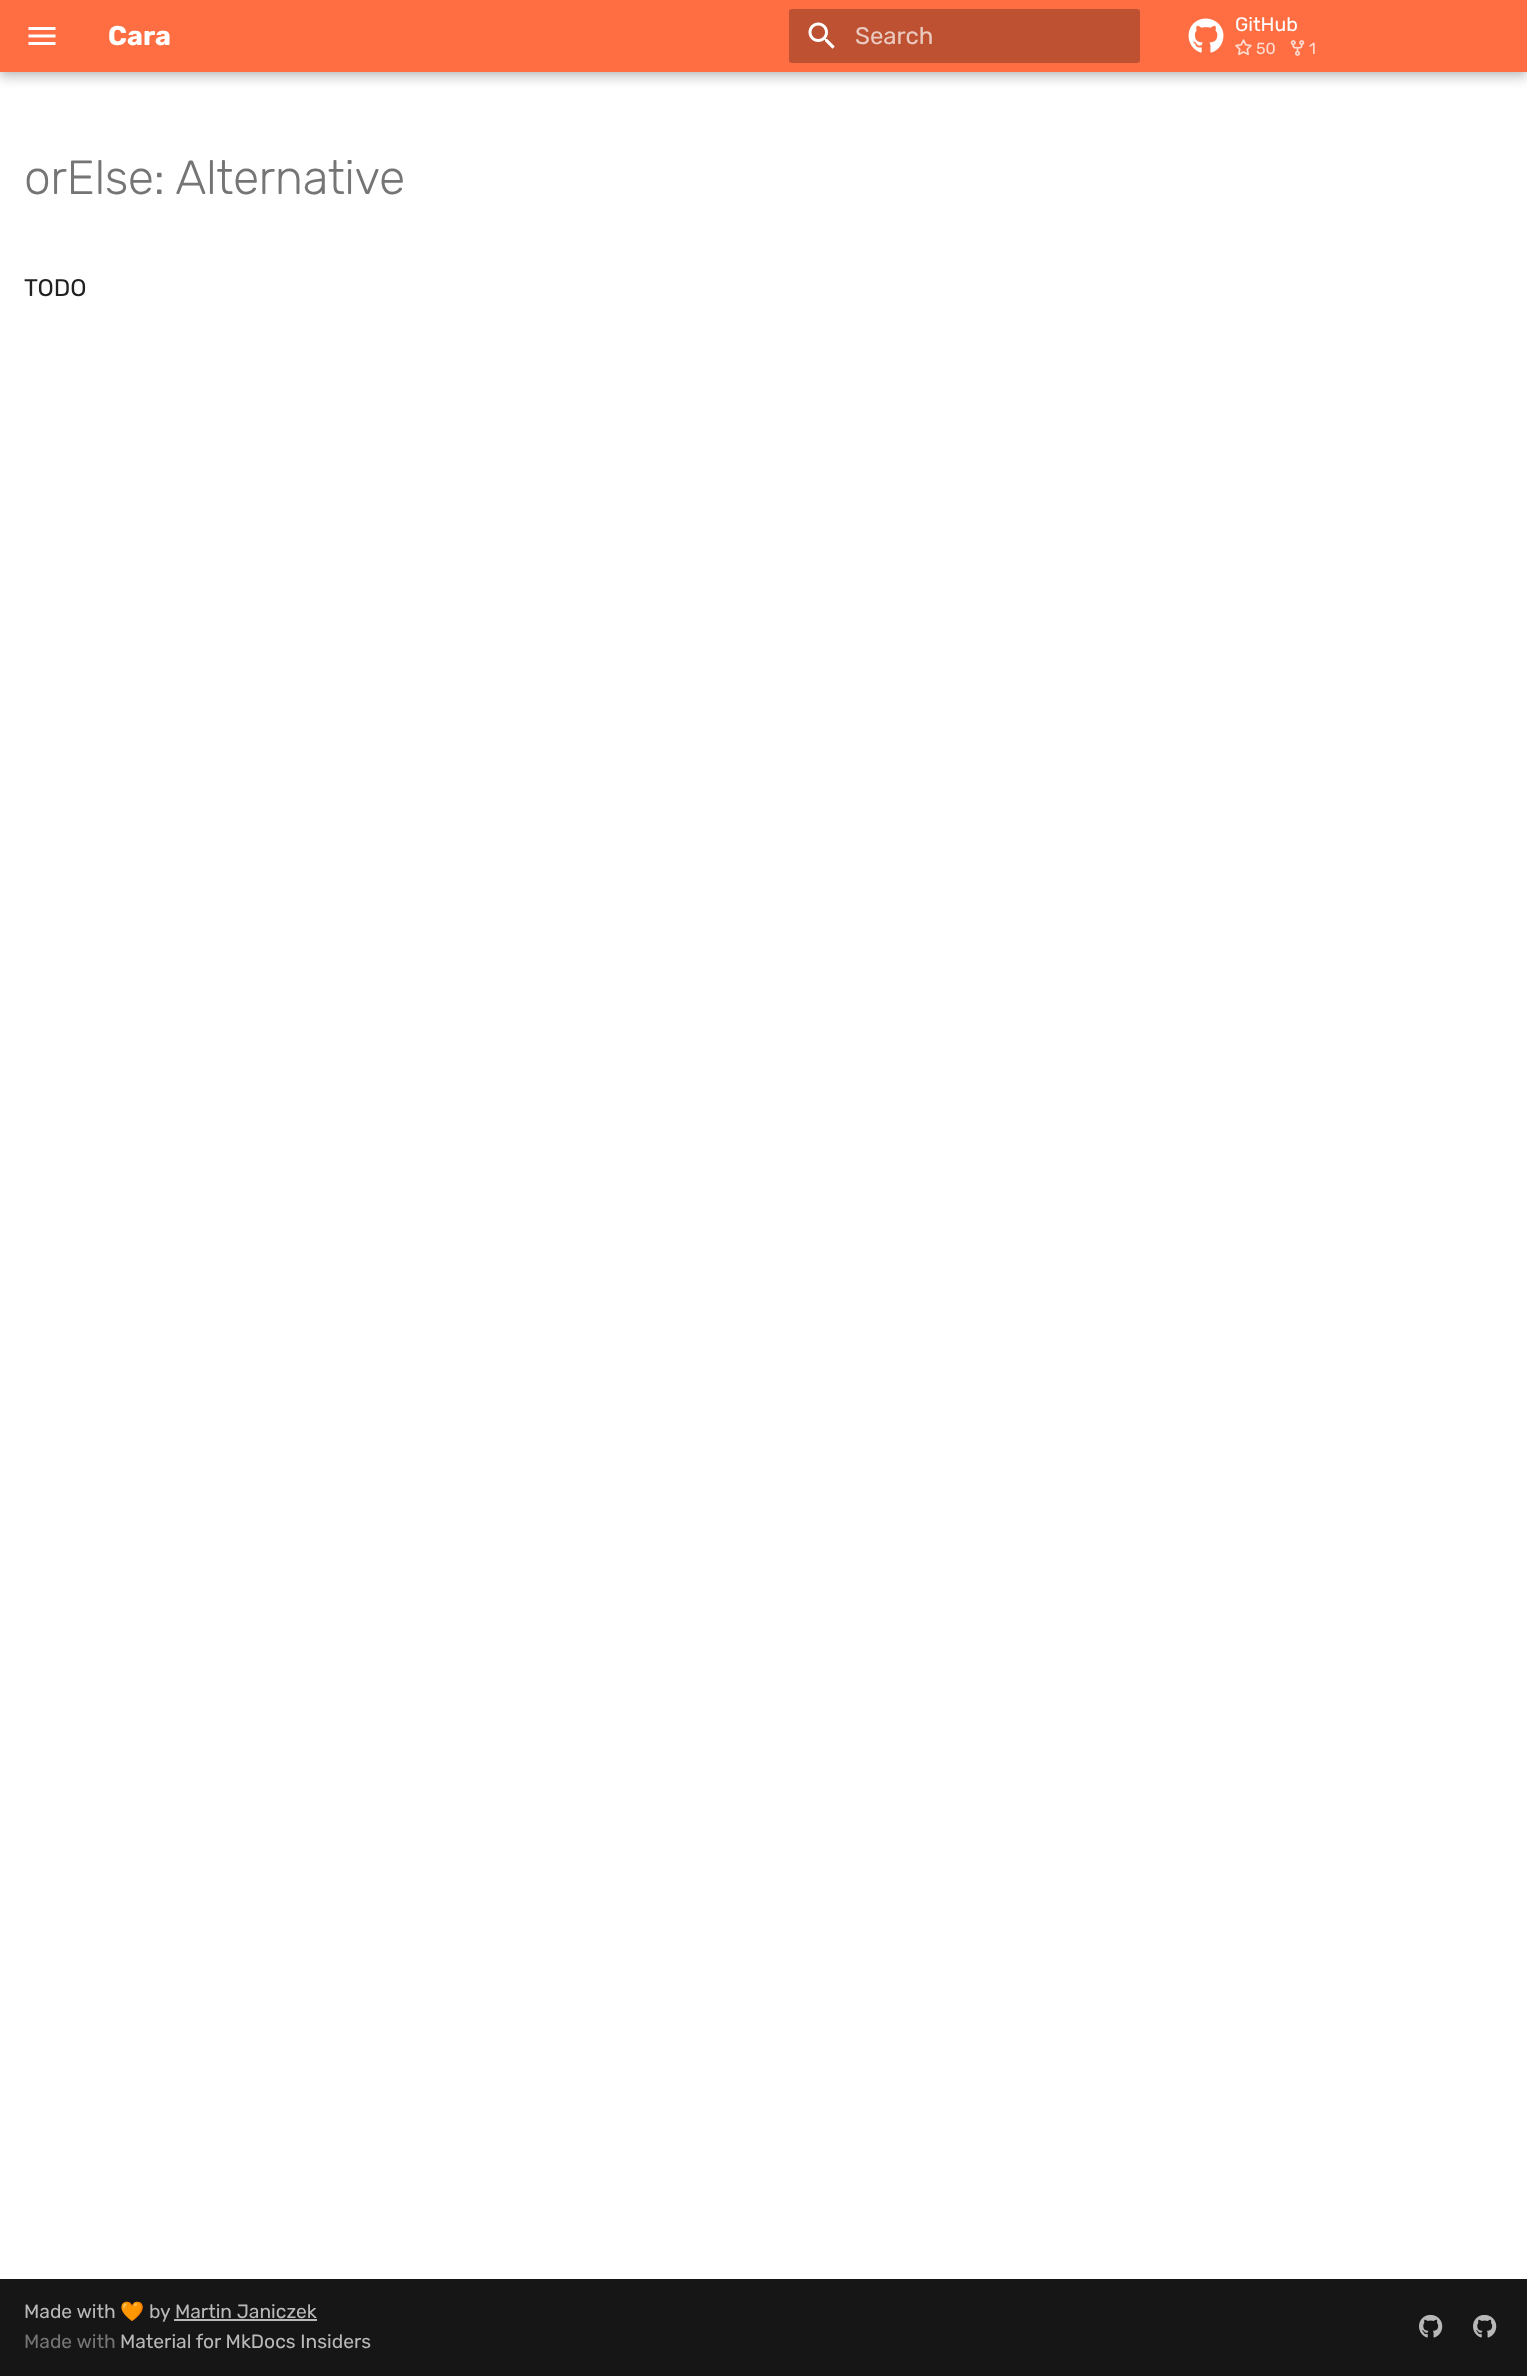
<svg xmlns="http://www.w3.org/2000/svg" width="1527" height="2376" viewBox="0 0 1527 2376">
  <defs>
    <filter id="blur1" x="-50%" y="-200%" width="200%" height="500%"><feGaussianBlur stdDeviation="6"/></filter>
    <filter id="blur2" x="-50%" y="-200%" width="200%" height="500%"><feGaussianBlur stdDeviation="3"/></filter>
  </defs>
  <rect width="100%" height="100%" fill="#ffffff"/>
  <rect x="0" y="6" width="1527" height="72" fill="#000000" fill-opacity="0.2" filter="url(#blur1)"/>
  <rect x="0" y="0" width="1527" height="72" fill="#000000" fill-opacity="0.1" filter="url(#blur2)"/>
  <rect x="0" y="0" width="1527" height="72" fill="#ff6e42"/>
  <image x="28" y="27" width="28" height="18" href="img1.png"/>
  <text x="108" y="45" font-family="Rubik" font-size="27" font-weight="bold" fill="#ffffff">Cara</text>
  <rect x="789" y="9" width="351" height="54" rx="3" fill="#bd5131"/>
  <image x="808" y="22" width="27" height="27" href="img2.png"/>
  <text x="855" y="44" font-family="Rubik" font-size="24" fill="#ebcbc1">Search</text>
  <image x="1188" y="18" width="36" height="35" href="img3.png"/>
  <text x="1235" y="31" font-family="Rubik" font-size="19.5" fill="#ffffff">GitHub</text>
  <image x="1235" y="39" width="17" height="17" href="img4.png"/>
  <text x="1256" y="54" font-family="Rubik" font-size="16" fill="#ffdbd0">50</text>
  <image x="1290" y="40" width="15" height="16" href="img5.png"/>
  <text x="1309" y="54" font-family="Rubik" font-size="16" fill="#ffdbd0">1</text>
  <text x="24" y="194" font-family="Rubik" font-size="48" font-weight="300" letter-spacing="-0.5" fill="#757575">orElse: Alternative</text>
  <text x="24" y="296" font-family="Rubik" font-size="24" fill="#212121">TODO</text>
  <rect x="0" y="2279" width="1527" height="97" fill="#161616"/>
  <text x="24" y="2318" font-family="Rubik" font-size="19.25" fill="#b9b9b9">Made with</text>
  <text x="120" y="2318" font-family="Noto Color Emoji" font-size="19.25" fill="#b9b9b9">🧡</text>
  <text x="149" y="2318" font-family="Rubik" font-size="19.25" fill="#b9b9b9">by Martin Janiczek</text>
  <rect x="174" y="2319" width="143" height="2" fill="#b9b9b9"/>
  <text x="24" y="2348" font-family="Rubik" font-size="19.25" fill="#757575">Made with</text>
  <text x="120" y="2348" font-family="Rubik" font-size="19.25" fill="#b9b9b9">Material for MkDocs Insiders</text>
  <image x="1419" y="2315" width="24" height="23" href="img6.png"/>
  <image x="1473" y="2315" width="24" height="23" href="img6.png"/>
</svg>
